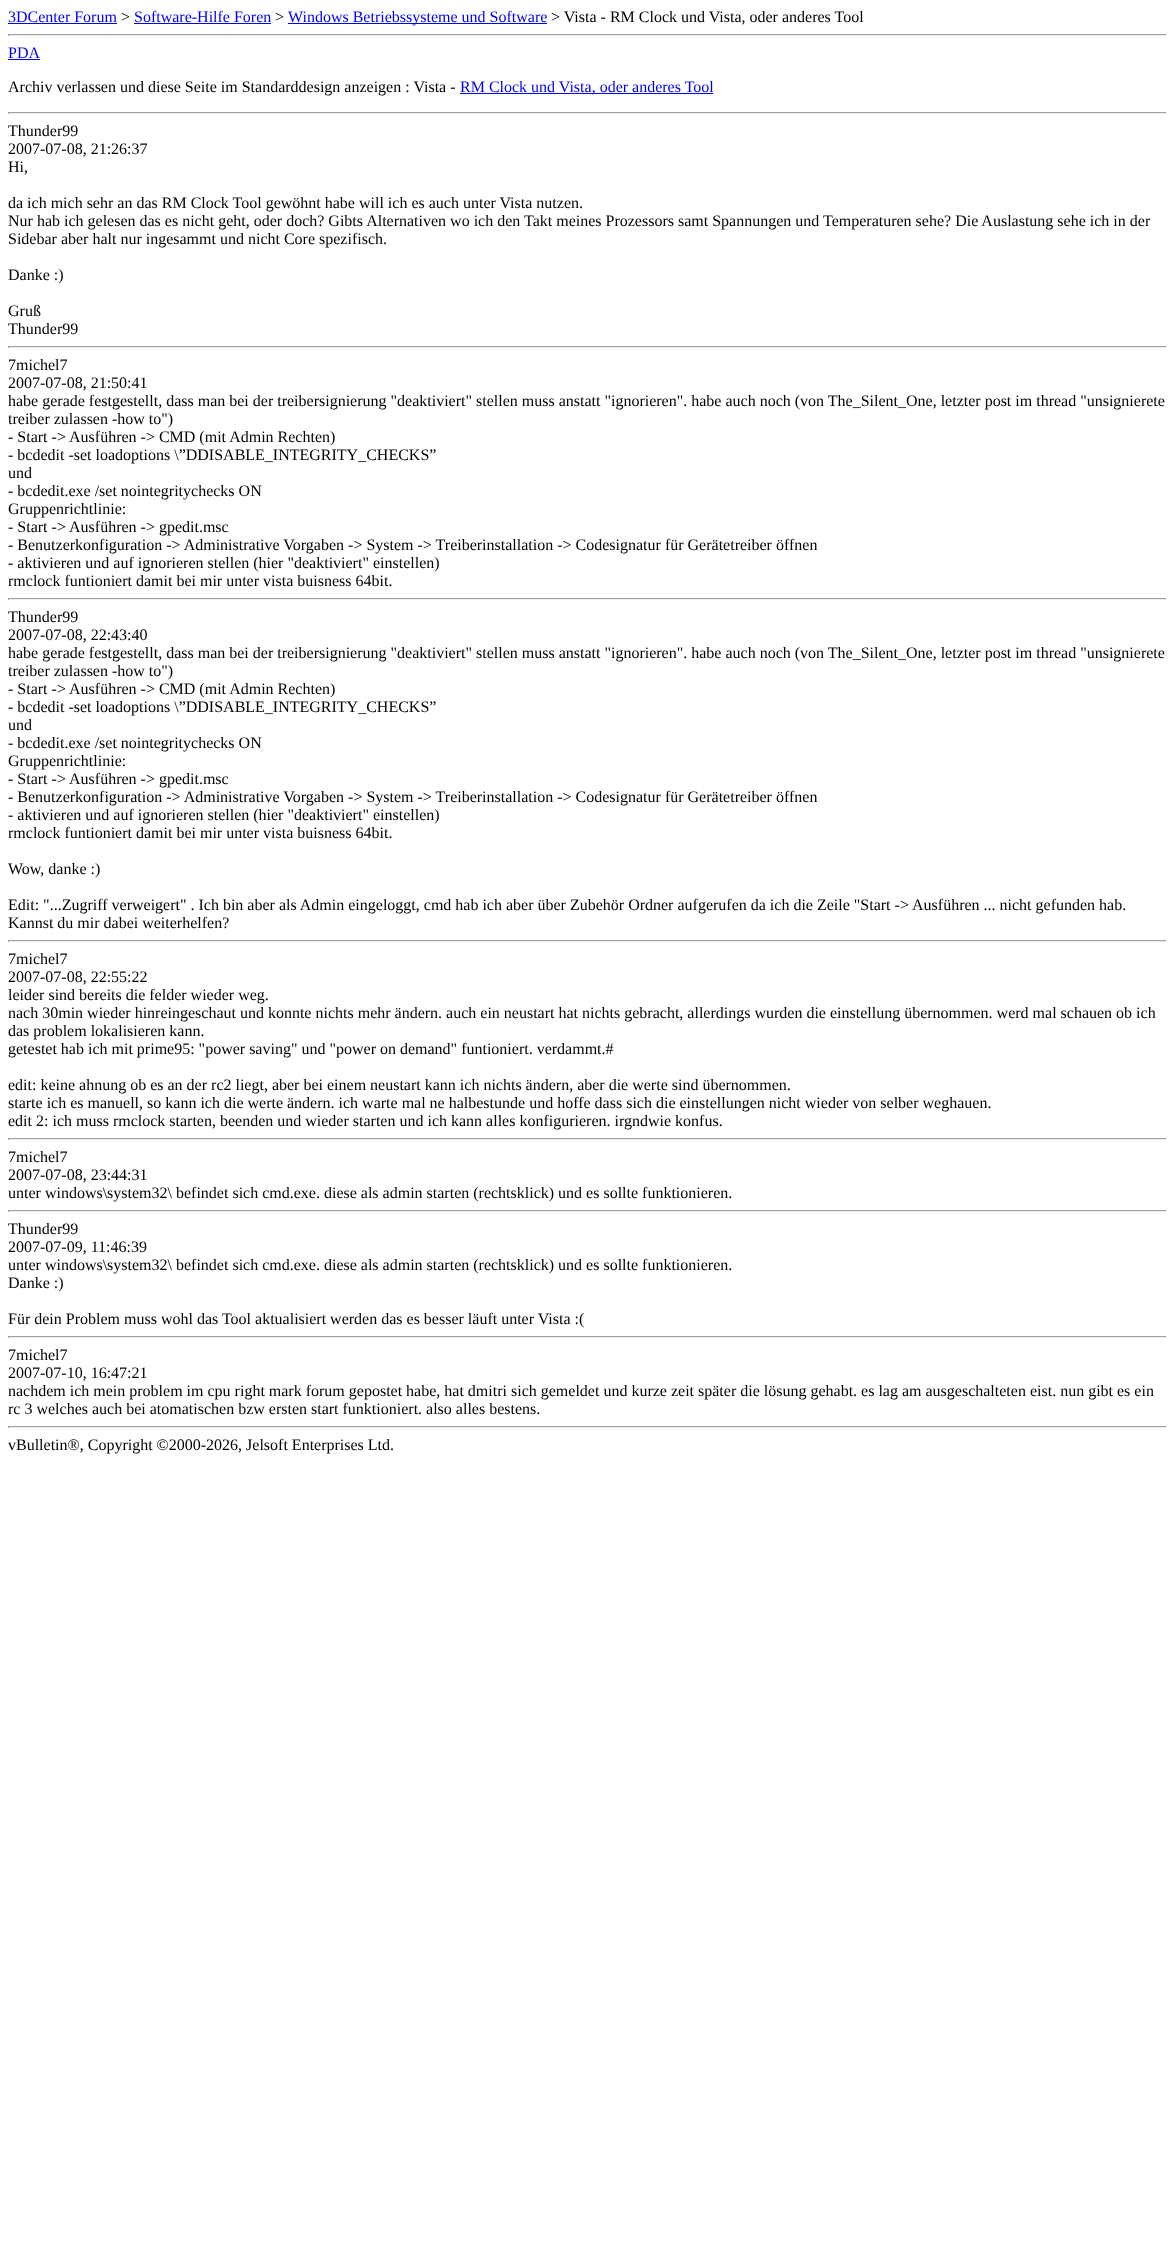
<svg xmlns="http://www.w3.org/2000/svg" width="1175" height="2261" viewBox="0 0 1175 2261">
  <rect width="100%" height="100%" fill="#ffffff"/>
  <text x="8" y="22" font-family="Liberation Serif" font-size="16" fill="#0000ee">3DCenter Forum</text>
  <rect x="8" y="23" width="109" height="1" fill="#0000ee"/>
  <text x="121" y="22" font-family="Liberation Serif" font-size="16" fill="#000000">&gt;</text>
  <text x="134" y="22" font-family="Liberation Serif" font-size="16" fill="#0000ee">Software-Hilfe Foren</text>
  <rect x="134" y="23" width="137" height="1" fill="#0000ee"/>
  <text x="275" y="22" font-family="Liberation Serif" font-size="16" fill="#000000">&gt;</text>
  <rect x="288" y="23" width="259" height="1" fill="#0000ee"/>
  <text x="288" y="22" font-family="Liberation Serif" font-size="16" fill="#0000ee">Windows Betriebssysteme und Software</text>
  <text x="551" y="22" font-family="Liberation Serif" font-size="16" fill="#000000">&gt; Vista - RM Clock und Vista, oder anderes Tool</text>
  <rect x="8" y="34" width="1159" height="1" fill="#9f9f9f"/>
  <rect x="1166" y="34" width="1" height="2" fill="#eeeeee"/>
  <rect x="8" y="35" width="1159" height="1" fill="#eeeeee"/>
  <rect x="8" y="34" width="1" height="2" fill="#9f9f9f"/>
  <text x="8" y="58" font-family="Liberation Serif" font-size="16" fill="#0000ee">PDA</text>
  <rect x="8" y="59" width="32" height="1" fill="#0000ee"/>
  <text x="8" y="92" font-family="Liberation Serif" font-size="16" fill="#000000">Archiv verlassen und diese Seite im Standarddesign anzeigen : Vista -</text>
  <rect x="460" y="93" width="253" height="1" fill="#0000ee"/>
  <text x="460" y="92" font-family="Liberation Serif" font-size="16" fill="#0000ee">RM Clock und Vista, oder anderes Tool</text>
  <rect x="8" y="112" width="1159" height="1" fill="#9f9f9f"/>
  <rect x="1166" y="112" width="1" height="2" fill="#eeeeee"/>
  <rect x="8" y="113" width="1159" height="1" fill="#eeeeee"/>
  <rect x="8" y="112" width="1" height="2" fill="#9f9f9f"/>
  <text x="8" y="136" font-family="Liberation Serif" font-size="16" fill="#000000">Thunder99</text>
  <text x="8" y="154" font-family="Liberation Serif" font-size="16" fill="#000000">2007-07-08, 21:26:37</text>
  <text x="8" y="172" font-family="Liberation Serif" font-size="16" fill="#000000">Hi,</text>
  <text x="8" y="208" font-family="Liberation Serif" font-size="16" fill="#000000">da ich mich sehr an das RM Clock Tool gewöhnt habe will ich es auch unter Vista nutzen.</text>
  <text x="8" y="226" font-family="Liberation Serif" font-size="16" fill="#000000">Nur hab ich gelesen das es nicht geht, oder doch? Gibts Alternativen wo ich den Takt meines Prozessors samt Spannungen und Temperaturen sehe? Die Auslastung sehe ich in der</text>
  <text x="8" y="244" font-family="Liberation Serif" font-size="16" fill="#000000">Sidebar aber halt nur ingesammt und nicht Core spezifisch.</text>
  <text x="8" y="280" font-family="Liberation Serif" font-size="16" fill="#000000">Danke :)</text>
  <text x="8" y="316" font-family="Liberation Serif" font-size="16" fill="#000000">Gruß</text>
  <text x="8" y="334" font-family="Liberation Serif" font-size="16" fill="#000000">Thunder99</text>
  <rect x="8" y="346" width="1159" height="1" fill="#9f9f9f"/>
  <rect x="1166" y="346" width="1" height="2" fill="#eeeeee"/>
  <rect x="8" y="347" width="1159" height="1" fill="#eeeeee"/>
  <rect x="8" y="346" width="1" height="2" fill="#9f9f9f"/>
  <text x="8" y="370" font-family="Liberation Serif" font-size="16" fill="#000000">7michel7</text>
  <text x="8" y="388" font-family="Liberation Serif" font-size="16" fill="#000000">2007-07-08, 21:50:41</text>
  <text x="8" y="406" font-family="Liberation Serif" font-size="16" fill="#000000">habe gerade festgestellt, dass man bei der treibersignierung "deaktiviert" stellen muss anstatt "ignorieren". habe auch noch (von The_Silent_One, letzter post im thread "unsignierete</text>
  <text x="8" y="424" font-family="Liberation Serif" font-size="16" fill="#000000">treiber zulassen -how to")</text>
  <text x="8" y="442" font-family="Liberation Serif" font-size="16" fill="#000000">- Start -&gt; Ausführen -&gt; CMD (mit Admin Rechten)</text>
  <text x="8" y="460" font-family="Liberation Serif" font-size="16" fill="#000000">- bcdedit -set loadoptions \”DDISABLE_INTEGRITY_CHECKS”</text>
  <text x="8" y="478" font-family="Liberation Serif" font-size="16" fill="#000000">und</text>
  <text x="8" y="496" font-family="Liberation Serif" font-size="16" fill="#000000">- bcdedit.exe /set nointegritychecks ON</text>
  <text x="8" y="514" font-family="Liberation Serif" font-size="16" fill="#000000">Gruppenrichtlinie:</text>
  <text x="8" y="532" font-family="Liberation Serif" font-size="16" fill="#000000">- Start -&gt; Ausführen -&gt; gpedit.msc</text>
  <text x="8" y="550" font-family="Liberation Serif" font-size="16" fill="#000000">- Benutzerkonfiguration -&gt; Administrative Vorgaben -&gt; System -&gt; Treiberinstallation -&gt; Codesignatur für Gerätetreiber öffnen</text>
  <text x="8" y="568" font-family="Liberation Serif" font-size="16" fill="#000000">- aktivieren und auf ignorieren stellen (hier "deaktiviert" einstellen)</text>
  <text x="8" y="586" font-family="Liberation Serif" font-size="16" fill="#000000">rmclock funtioniert damit bei mir unter vista buisness 64bit.</text>
  <rect x="8" y="598" width="1159" height="1" fill="#9f9f9f"/>
  <rect x="1166" y="598" width="1" height="2" fill="#eeeeee"/>
  <rect x="8" y="599" width="1159" height="1" fill="#eeeeee"/>
  <rect x="8" y="598" width="1" height="2" fill="#9f9f9f"/>
  <text x="8" y="622" font-family="Liberation Serif" font-size="16" fill="#000000">Thunder99</text>
  <text x="8" y="640" font-family="Liberation Serif" font-size="16" fill="#000000">2007-07-08, 22:43:40</text>
  <text x="8" y="658" font-family="Liberation Serif" font-size="16" fill="#000000">habe gerade festgestellt, dass man bei der treibersignierung "deaktiviert" stellen muss anstatt "ignorieren". habe auch noch (von The_Silent_One, letzter post im thread "unsignierete</text>
  <text x="8" y="676" font-family="Liberation Serif" font-size="16" fill="#000000">treiber zulassen -how to")</text>
  <text x="8" y="694" font-family="Liberation Serif" font-size="16" fill="#000000">- Start -&gt; Ausführen -&gt; CMD (mit Admin Rechten)</text>
  <text x="8" y="712" font-family="Liberation Serif" font-size="16" fill="#000000">- bcdedit -set loadoptions \”DDISABLE_INTEGRITY_CHECKS”</text>
  <text x="8" y="730" font-family="Liberation Serif" font-size="16" fill="#000000">und</text>
  <text x="8" y="748" font-family="Liberation Serif" font-size="16" fill="#000000">- bcdedit.exe /set nointegritychecks ON</text>
  <text x="8" y="766" font-family="Liberation Serif" font-size="16" fill="#000000">Gruppenrichtlinie:</text>
  <text x="8" y="784" font-family="Liberation Serif" font-size="16" fill="#000000">- Start -&gt; Ausführen -&gt; gpedit.msc</text>
  <text x="8" y="802" font-family="Liberation Serif" font-size="16" fill="#000000">- Benutzerkonfiguration -&gt; Administrative Vorgaben -&gt; System -&gt; Treiberinstallation -&gt; Codesignatur für Gerätetreiber öffnen</text>
  <text x="8" y="820" font-family="Liberation Serif" font-size="16" fill="#000000">- aktivieren und auf ignorieren stellen (hier "deaktiviert" einstellen)</text>
  <text x="8" y="838" font-family="Liberation Serif" font-size="16" fill="#000000">rmclock funtioniert damit bei mir unter vista buisness 64bit.</text>
  <text x="8" y="874" font-family="Liberation Serif" font-size="16" fill="#000000">Wow, danke :)</text>
  <text x="8" y="910" font-family="Liberation Serif" font-size="16" fill="#000000">Edit: "...Zugriff verweigert" . Ich bin aber als Admin eingeloggt, cmd hab ich aber über Zubehör Ordner aufgerufen da ich die Zeile "Start -&gt; Ausführen ... nicht gefunden hab.</text>
  <text x="8" y="928" font-family="Liberation Serif" font-size="16" fill="#000000">Kannst du mir dabei weiterhelfen?</text>
  <rect x="8" y="940" width="1159" height="1" fill="#9f9f9f"/>
  <rect x="1166" y="940" width="1" height="2" fill="#eeeeee"/>
  <rect x="8" y="941" width="1159" height="1" fill="#eeeeee"/>
  <rect x="8" y="940" width="1" height="2" fill="#9f9f9f"/>
  <text x="8" y="964" font-family="Liberation Serif" font-size="16" fill="#000000">7michel7</text>
  <text x="8" y="982" font-family="Liberation Serif" font-size="16" fill="#000000">2007-07-08, 22:55:22</text>
  <text x="8" y="1000" font-family="Liberation Serif" font-size="16" fill="#000000">leider sind bereits die felder wieder weg.</text>
  <text x="8" y="1018" font-family="Liberation Serif" font-size="16" fill="#000000">nach 30min wieder hinreingeschaut und konnte nichts mehr ändern. auch ein neustart hat nichts gebracht, allerdings wurden die einstellung übernommen. werd mal schauen ob ich</text>
  <text x="8" y="1036" font-family="Liberation Serif" font-size="16" fill="#000000">das problem lokalisieren kann.</text>
  <text x="8" y="1054" font-family="Liberation Serif" font-size="16" fill="#000000">getestet hab ich mit prime95: "power saving" und "power on demand" funtioniert. verdammt.#</text>
  <text x="8" y="1090" font-family="Liberation Serif" font-size="16" fill="#000000">edit: keine ahnung ob es an der rc2 liegt, aber bei einem neustart kann ich nichts ändern, aber die werte sind übernommen.</text>
  <text x="8" y="1108" font-family="Liberation Serif" font-size="16" fill="#000000">starte ich es manuell, so kann ich die werte ändern. ich warte mal ne halbestunde und hoffe dass sich die einstellungen nicht wieder von selber weghauen.</text>
  <text x="8" y="1126" font-family="Liberation Serif" font-size="16" fill="#000000">edit 2: ich muss rmclock starten, beenden und wieder starten und ich kann alles konfigurieren. irgndwie konfus.</text>
  <rect x="8" y="1138" width="1159" height="1" fill="#9f9f9f"/>
  <rect x="1166" y="1138" width="1" height="2" fill="#eeeeee"/>
  <rect x="8" y="1139" width="1159" height="1" fill="#eeeeee"/>
  <rect x="8" y="1138" width="1" height="2" fill="#9f9f9f"/>
  <text x="8" y="1162" font-family="Liberation Serif" font-size="16" fill="#000000">7michel7</text>
  <text x="8" y="1180" font-family="Liberation Serif" font-size="16" fill="#000000">2007-07-08, 23:44:31</text>
  <text x="8" y="1198" font-family="Liberation Serif" font-size="16" fill="#000000">unter windows\system32\ befindet sich cmd.exe. diese als admin starten (rechtsklick) und es sollte funktionieren.</text>
  <rect x="8" y="1210" width="1159" height="1" fill="#9f9f9f"/>
  <rect x="1166" y="1210" width="1" height="2" fill="#eeeeee"/>
  <rect x="8" y="1211" width="1159" height="1" fill="#eeeeee"/>
  <rect x="8" y="1210" width="1" height="2" fill="#9f9f9f"/>
  <text x="8" y="1234" font-family="Liberation Serif" font-size="16" fill="#000000">Thunder99</text>
  <text x="8" y="1252" font-family="Liberation Serif" font-size="16" fill="#000000">2007-07-09, 11:46:39</text>
  <text x="8" y="1270" font-family="Liberation Serif" font-size="16" fill="#000000">unter windows\system32\ befindet sich cmd.exe. diese als admin starten (rechtsklick) und es sollte funktionieren.</text>
  <text x="8" y="1288" font-family="Liberation Serif" font-size="16" fill="#000000">Danke :)</text>
  <text x="8" y="1324" font-family="Liberation Serif" font-size="16" fill="#000000">Für dein Problem muss wohl das Tool aktualisiert werden das es besser läuft unter Vista :(</text>
  <rect x="8" y="1336" width="1159" height="1" fill="#9f9f9f"/>
  <rect x="1166" y="1336" width="1" height="2" fill="#eeeeee"/>
  <rect x="8" y="1337" width="1159" height="1" fill="#eeeeee"/>
  <rect x="8" y="1336" width="1" height="2" fill="#9f9f9f"/>
  <text x="8" y="1360" font-family="Liberation Serif" font-size="16" fill="#000000">7michel7</text>
  <text x="8" y="1378" font-family="Liberation Serif" font-size="16" fill="#000000">2007-07-10, 16:47:21</text>
  <text x="8" y="1396" font-family="Liberation Serif" font-size="16" fill="#000000">nachdem ich mein problem im cpu right mark forum gepostet habe, hat dmitri sich gemeldet und kurze zeit später die lösung gehabt. es lag am ausgeschalteten eist. nun gibt es ein</text>
  <text x="8" y="1414" font-family="Liberation Serif" font-size="16" fill="#000000">rc 3 welches auch bei atomatischen bzw ersten start funktioniert. also alles bestens.</text>
  <rect x="8" y="1426" width="1159" height="1" fill="#9f9f9f"/>
  <rect x="1166" y="1426" width="1" height="2" fill="#eeeeee"/>
  <rect x="8" y="1427" width="1159" height="1" fill="#eeeeee"/>
  <rect x="8" y="1426" width="1" height="2" fill="#9f9f9f"/>
  <text x="8" y="1450" font-family="Liberation Serif" font-size="16" fill="#000000">vBulletin®, Copyright ©2000-2026, Jelsoft Enterprises Ltd.</text>
</svg>
